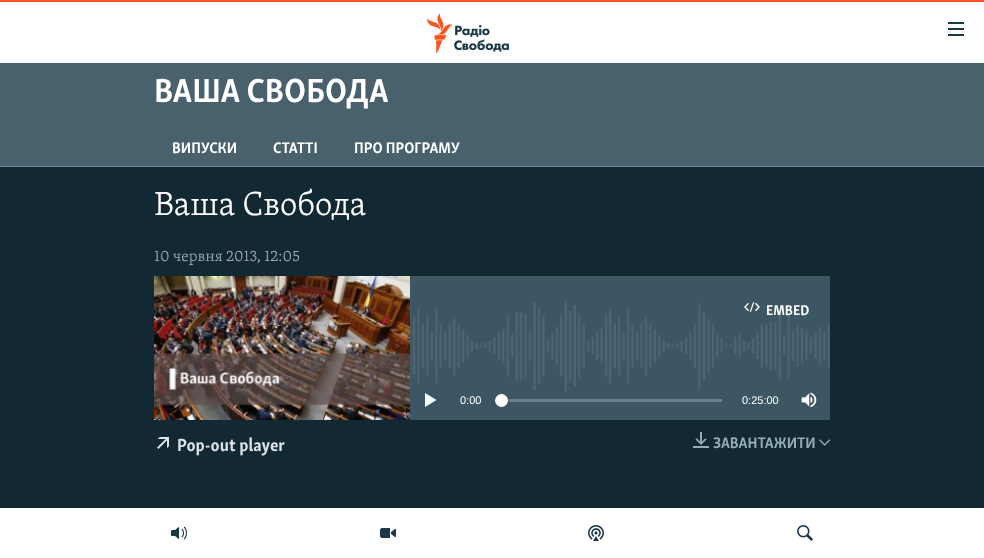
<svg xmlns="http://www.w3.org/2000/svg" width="984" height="558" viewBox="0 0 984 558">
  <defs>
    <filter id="blur1" x="-50%" y="-200%" width="200%" height="500%"><feGaussianBlur stdDeviation="10"/></filter>
    <filter id="blur2" x="-50%" y="-200%" width="200%" height="500%"><feGaussianBlur stdDeviation="1.5"/></filter>
  </defs>
  <rect width="100%" height="100%" fill="#ffffff"/>
  <rect x="0" y="0" width="984" height="2" fill="#fa5420"/>
  <image x="427" y="13" width="82" height="40" href="img1.png"/>
  <image x="948" y="22" width="16" height="14" href="img2.png"/>
  <rect x="0" y="167" width="984" height="341" fill="#122832"/>
  <rect x="0" y="508" width="984" height="50" fill="#000000" fill-opacity="0.1" filter="url(#blur1)"/>
  <rect x="0" y="508" width="984" height="50" fill="#ffffff"/>
  <image x="171" y="526" width="16" height="14" href="img3.png"/>
  <image x="380" y="528" width="16" height="10" href="img4.png"/>
  <image x="588" y="525" width="16" height="16" href="img5.png"/>
  <image x="797" y="525" width="16" height="16" href="img6.png"/>
  <rect x="0" y="63" width="984" height="103" fill="#48616d"/>
  <text x="154" y="102" font-family="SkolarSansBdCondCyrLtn" font-size="34.25" font-weight="bold" fill="#ffffff">ВАША СВОБОДА</text>
  <text x="172" y="153" font-family="SkolarSansBdCondCyrLtn" font-size="15.75" font-weight="bold" fill="#ffffff">ВИПУСКИ</text>
  <text x="273" y="153" font-family="SkolarSansBdCondCyrLtn" font-size="15.75" font-weight="bold" fill="#ffffff">СТАТТІ</text>
  <text x="354" y="153" font-family="SkolarSansBdCondCyrLtn" font-size="15.75" font-weight="bold" fill="#ffffff">ПРО ПРОГРАМУ</text>
  <rect x="0" y="166" width="984" height="1" fill="#678a9b"/>
  <text x="154" y="215" font-family="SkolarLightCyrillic" font-size="34.25" font-weight="300" fill="#ffffff">Ваша Свобода</text>
  <text x="154" y="261" font-family="SkolarLightCyrillic" font-size="15.75" font-weight="300" fill="#95adb9">10 червня 2013, 12:05</text>
  <rect x="410" y="276" width="420" height="144" fill="#3c5763"/>
  <image x="410" y="300" width="420" height="92" href="img7.png"/>
  <image x="154" y="276" width="256" height="144" href="img8.png"/>
  <image x="744" y="302" width="16" height="10" href="img9.png"/>
  <text x="766" y="315" font-family="SkolarSansBdCondCyrLtn" font-size="14.5" font-weight="bold" fill="#ffffff">EMBED</text>
  <path d="M425 407L436.5 400L425 393Z" fill="#ffffff"/>
  <text x="460" y="404" font-family="Liberation Sans" font-size="11" fill="#ffffff">0:00</text>
  <rect x="501" y="399" width="221" height="3" fill="#6d818a"/>
  <rect x="495" y="394" width="13" height="13" rx="6.5" fill="#414144" filter="url(#blur2)"/>
  <circle cx="501.5" cy="400.5" r="6.5" fill="#ffffff"/>
  <text x="742" y="404" font-family="Liberation Sans" font-size="11" fill="#ffffff">0:25:00</text>
  <image x="801" y="392" width="16" height="16" href="img10.png"/>
  <image x="157" y="437" width="12" height="12" href="img11.png"/>
  <text x="177" y="451" font-family="SkolarSansBdCondCyrLtn" font-size="18" font-weight="bold" fill="#dce4e8">Pop-out player</text>
  <image x="693" y="432" width="16" height="16" href="img12.png"/>
  <text x="713" y="448" font-family="SkolarSansBdCondCyrLtn" font-size="15.75" font-weight="bold" fill="#95adb9">ЗАВАНТАЖИТИ</text>
  <image x="819" y="439" width="12" height="7" href="img13.png"/>
</svg>
